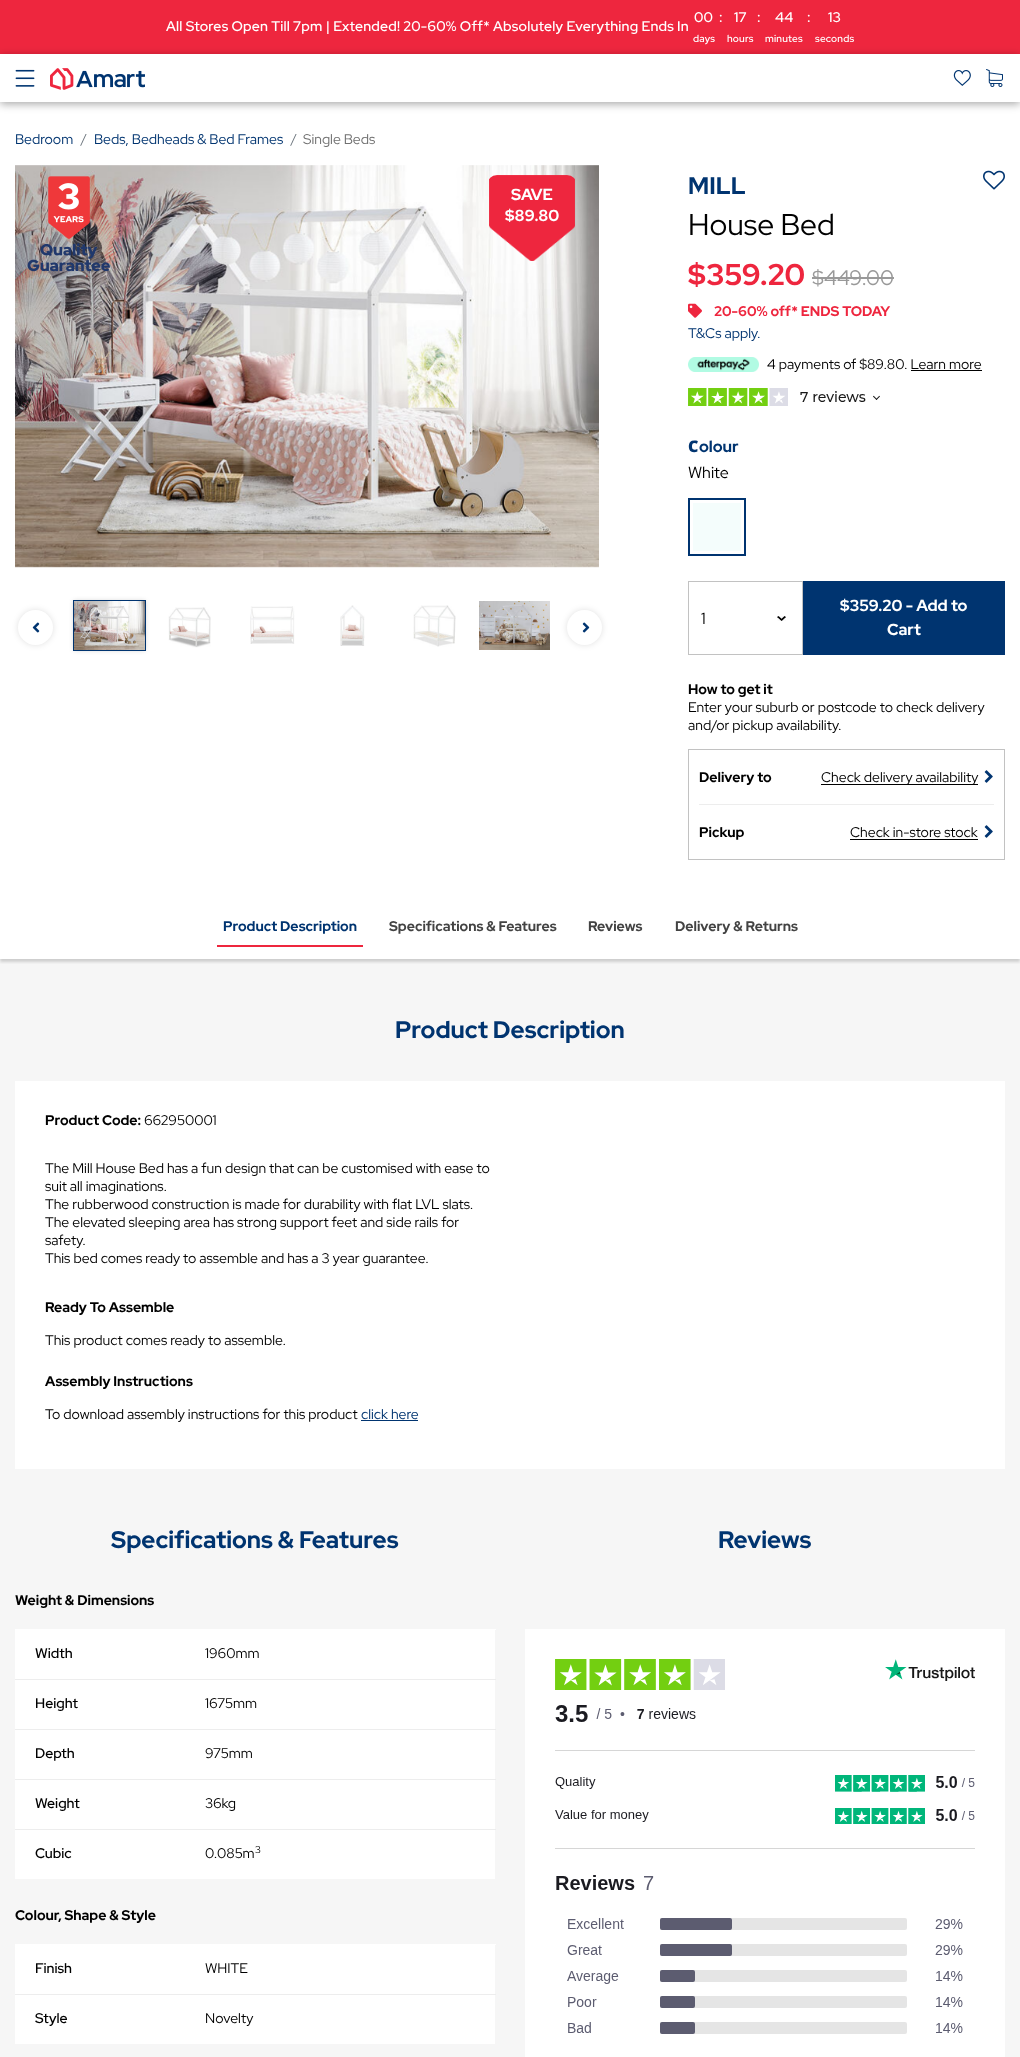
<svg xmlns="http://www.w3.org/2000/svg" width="1020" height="2057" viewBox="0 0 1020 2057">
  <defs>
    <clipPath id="clip1"><path d="M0 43H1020V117H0ZM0 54H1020V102H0Z" clip-rule="evenodd"/></clipPath>
    <filter id="blur1" x="-50%" y="-200%" width="200%" height="500%"><feGaussianBlur stdDeviation="4"/></filter>
    <filter id="blur2" x="-50%" y="-200%" width="200%" height="500%"><feGaussianBlur stdDeviation="3"/></filter>
    <filter id="blur3" x="-50%" y="-200%" width="200%" height="500%"><feGaussianBlur stdDeviation="2.5"/></filter>
    <clipPath id="clip2"><rect x="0" y="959" width="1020" height="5"/></clipPath>
    <filter id="blur4" x="-50%" y="-200%" width="200%" height="500%"><feGaussianBlur stdDeviation="1.5"/></filter>
  </defs>
  <rect width="100%" height="100%" fill="#ffffff"/>
  <rect x="0" y="0" width="1020" height="54" fill="#ee263e"/>
  <text x="166" y="31" font-family="Red Hat Display" font-size="14" font-weight="600" letter-spacing="0.2" fill="#ffffff">All Stores Open Till 7pm | Extended! 20-60% Off* Absolutely Everything Ends In</text>
  <text x="694" y="22" font-family="Red Hat Display" font-size="14" font-weight="600" letter-spacing="0.2" fill="#ffffff">00</text>
  <g clip-path="url(#clip1)">
    <rect x="0" y="56" width="1020" height="48" fill="#000000" fill-opacity="0.35" filter="url(#blur1)"/>
  </g>
  <text x="693" y="42" font-family="Red Hat Display" font-size="10" font-weight="600" letter-spacing="0.2" fill="#ffffff">days</text>
  <text x="719" y="22" font-family="Red Hat Display" font-size="14" font-weight="600" letter-spacing="0.2" fill="#ffffff">:</text>
  <text x="734" y="22" font-family="Red Hat Display" font-size="14" font-weight="600" letter-spacing="0.2" fill="#ffffff">17</text>
  <text x="727" y="42" font-family="Red Hat Display" font-size="10" font-weight="600" letter-spacing="0.2" fill="#ffffff">hours</text>
  <text x="757" y="22" font-family="Red Hat Display" font-size="14" font-weight="600" letter-spacing="0.2" fill="#ffffff">:</text>
  <text x="775" y="22" font-family="Red Hat Display" font-size="14" font-weight="600" letter-spacing="0.2" fill="#ffffff">44</text>
  <text x="765" y="42" font-family="Red Hat Display" font-size="10" font-weight="600" letter-spacing="0.2" fill="#ffffff">minutes</text>
  <text x="807" y="22" font-family="Red Hat Display" font-size="14" font-weight="600" letter-spacing="0.2" fill="#ffffff">:</text>
  <text x="828" y="22" font-family="Red Hat Display" font-size="14" font-weight="600" letter-spacing="0.2" fill="#ffffff">13</text>
  <text x="815" y="42" font-family="Red Hat Display" font-size="10" font-weight="600" letter-spacing="0.2" fill="#ffffff">seconds</text>
  <image x="15" y="69" width="20" height="18" href="img1.png"/>
  <image x="50" y="68" width="95" height="22" href="img2.png"/>
  <image x="953" y="70" width="18" height="16" href="img3.png"/>
  <image x="986" y="69" width="17" height="18" href="img4.png"/>
  <text x="15" y="144" font-family="Red Hat Display" font-size="14" fill="#003470">Bedroom</text>
  <text x="81" y="143" font-family="Red Hat Display" font-size="13" fill="#6c757d">/</text>
  <text x="94" y="144" font-family="Red Hat Display" font-size="14" fill="#003470">Beds, Bedheads &amp; Bed Frames</text>
  <text x="291" y="143" font-family="Red Hat Display" font-size="13" fill="#6c757d">/</text>
  <text x="303" y="144" font-family="Red Hat Display" font-size="14" fill="#707070">Single Beds</text>
  <image x="15" y="165" width="584" height="403" href="img5.png"/>
  <image x="27" y="176" width="83" height="96" href="img6.png"/>
  <image x="489" y="175" width="86" height="86" href="img7.png"/>
  <text x="511" y="200" font-family="Red Hat Display" font-size="16" font-weight="bold" fill="#ffffff">SAVE</text>
  <text x="505" y="221" font-family="Red Hat Display" font-size="16" font-weight="bold" fill="#ffffff">$89.80</text>
  <rect x="18" y="610" width="35" height="35" rx="17.5" fill="#000000" fill-opacity="0.12" filter="url(#blur2)"/>
  <circle cx="35.5" cy="627.5" r="17.5" fill="#ffffff"/>
  <image x="32" y="622" width="8" height="11" href="img8.png"/>
  <rect x="74" y="601" width="71" height="49" fill="#000000" fill-opacity="0.2" filter="url(#blur3)"/>
  <image x="74" y="601" width="71" height="49" href="img9.png"/>
  <rect x="73.5" y="600.5" width="72" height="50" fill="none" stroke="#003470"/>
  <image x="168" y="607" width="43" height="41" href="img10.png"/>
  <image x="250" y="606" width="45" height="38" href="img11.png"/>
  <image x="340" y="605" width="25" height="41" href="img12.png"/>
  <image x="413" y="605" width="43" height="42" href="img13.png"/>
  <image x="479" y="601" width="71" height="49" href="img14.png"/>
  <rect x="567" y="610" width="35" height="35" rx="17.5" fill="#000000" fill-opacity="0.12" filter="url(#blur2)"/>
  <circle cx="584.5" cy="627.5" r="17.5" fill="#ffffff"/>
  <image x="582" y="622" width="8" height="11" href="img15.png"/>
  <text x="688" y="194" font-family="Red Hat Display" font-size="24" font-weight="bold" fill="#003470">MILL</text>
  <image x="983" y="170" width="22" height="20" href="img16.png"/>
  <text x="688" y="235" font-family="Red Hat Display" font-size="30" fill="#000000">House Bed</text>
  <text x="688" y="285" font-family="Red Hat Display" font-size="30" font-weight="bold" fill="#ee263e">$359.20</text>
  <text x="812" y="285" font-family="Red Hat Display" font-size="21" fill="#999999">$449.00</text>
  <rect x="812" y="277" width="82" height="2" fill="#999999"/>
  <image x="688" y="303" width="14" height="15" href="img17.png"/>
  <text x="714" y="316" font-family="Red Hat Display" font-size="14" font-weight="bold" fill="#ee263e">20-60% off* ENDS TODAY</text>
  <text x="688" y="338" font-family="Red Hat Display" font-size="14" fill="#003470">T&amp;Cs apply.</text>
  <image x="688" y="357" width="71" height="15" href="img18.png"/>
  <text x="767" y="369" font-family="Red Hat Display" font-size="14" fill="#000000">4 payments of $89.80. Learn more</text>
  <rect x="911" y="370" width="71" height="1" fill="#000000"/>
  <image x="688" y="388" width="192" height="18" href="img19.png"/>
  <text x="688" y="452" font-family="Noto Sans" font-size="16" font-weight="900" fill="#003470">C</text>
  <text x="699" y="452" font-family="Red Hat Display" font-size="16" font-weight="bold" fill="#003470">olour</text>
  <text x="688" y="478" font-family="Red Hat Display" font-size="16" fill="#000000">White</text>
  <rect x="693" y="503" width="48" height="48" fill="#f4fdfc"/>
  <rect x="689" y="499" width="56" height="56" fill="none" stroke="#003470" stroke-width="2"/>
  <rect x="688.5" y="581.5" width="114" height="73" fill="none" stroke="#c2c2c2"/>
  <text x="701" y="624" font-family="Red Hat Display" font-size="16" fill="#000000">1</text>
  <image x="777" y="616" width="9" height="5" href="img20.png"/>
  <rect x="803" y="581" width="202" height="74" fill="#003470"/>
  <text x="840" y="611" font-family="Red Hat Display" font-size="16" font-weight="bold" fill="#ffffff">$359.20 - Add to</text>
  <text x="887" y="635" font-family="Red Hat Display" font-size="16" font-weight="bold" fill="#ffffff">Cart</text>
  <text x="688" y="694" font-family="Red Hat Display" font-size="14" font-weight="bold" fill="#000000">How to get it</text>
  <text x="688" y="712" font-family="Red Hat Display" font-size="14" fill="#000000">Enter your suburb or postcode to check delivery</text>
  <text x="688" y="730" font-family="Red Hat Display" font-size="14" fill="#000000">and/or pickup availability.</text>
  <rect x="688.5" y="749.5" width="316" height="110" fill="none" stroke="#c2c2c2"/>
  <text x="699" y="782" font-family="Red Hat Display" font-size="14" font-weight="bold" fill="#000000">Delivery to</text>
  <text x="821" y="782" font-family="Red Hat Display" font-size="14" fill="#000000">Check delivery availability</text>
  <image x="984" y="770" width="9" height="13" href="img21.png"/>
  <rect x="821" y="784" width="157" height="1" fill="#000000"/>
  <rect x="699" y="804" width="295" height="1" fill="#ededed"/>
  <text x="699" y="837" font-family="Red Hat Display" font-size="14" font-weight="bold" fill="#000000">Pickup</text>
  <text x="850" y="837" font-family="Red Hat Display" font-size="14" fill="#000000">Check in-store stock</text>
  <image x="984" y="825" width="9" height="13" href="img21.png"/>
  <rect x="850" y="839" width="128" height="1" fill="#000000"/>
  <rect x="0" y="959" width="1020" height="1098" fill="#f6f6f6"/>
  <g clip-path="url(#clip2)">
    <rect x="0" y="908" width="1020" height="54" fill="#000000" fill-opacity="0.16" filter="url(#blur4)"/>
  </g>
  <text x="223" y="931" font-family="Red Hat Display" font-size="14" font-weight="bold" fill="#003470">Product Description</text>
  <rect x="217" y="945" width="146" height="2" fill="#ee263e"/>
  <text x="389" y="931" font-family="Red Hat Display" font-size="14" font-weight="bold" fill="#434343">Specifications &amp; Features</text>
  <text x="588" y="931" font-family="Red Hat Display" font-size="14" font-weight="bold" fill="#434343">Reviews</text>
  <text x="675" y="931" font-family="Red Hat Display" font-size="14" font-weight="bold" fill="#434343">Delivery &amp; Returns</text>
  <text x="395" y="1038" font-family="Red Hat Display" font-size="24" font-weight="bold" fill="#003470">Product Description</text>
  <rect x="15" y="1081" width="990" height="388" fill="#ffffff"/>
  <text x="45" y="1125" font-family="Red Hat Display" font-size="14" font-weight="bold" fill="#000000">Product Code:</text>
  <text x="144" y="1125" font-family="Red Hat Display" font-size="14" fill="#000000">662950001</text>
  <text x="45" y="1173" font-family="Red Hat Display" font-size="14" fill="#000000">The Mill House Bed has a fun design that can be customised with ease to</text>
  <text x="45" y="1191" font-family="Red Hat Display" font-size="14" fill="#000000">suit all imaginations.</text>
  <text x="45" y="1209" font-family="Red Hat Display" font-size="14" fill="#000000">The rubberwood construction is made for durability with flat LVL slats.</text>
  <text x="45" y="1227" font-family="Red Hat Display" font-size="14" fill="#000000">The elevated sleeping area has strong support feet and side rails for</text>
  <text x="45" y="1245" font-family="Red Hat Display" font-size="14" fill="#000000">safety.</text>
  <text x="45" y="1263" font-family="Red Hat Display" font-size="14" fill="#000000">This bed comes ready to assemble and has a 3 year guarantee.</text>
  <text x="45" y="1312" font-family="Red Hat Display" font-size="14" font-weight="bold" fill="#000000">Ready To Assemble</text>
  <text x="45" y="1345" font-family="Red Hat Display" font-size="14" fill="#000000">This product comes ready to assemble.</text>
  <text x="45" y="1386" font-family="Red Hat Display" font-size="14" font-weight="bold" fill="#000000">Assembly Instructions</text>
  <text x="45" y="1419" font-family="Red Hat Display" font-size="14" fill="#000000">To download assembly instructions for this product</text>
  <text x="361" y="1419" font-family="Red Hat Display" font-size="14" fill="#003470">click here</text>
  <rect x="361" y="1420" width="57" height="1" fill="#003470"/>
  <text x="111" y="1548" font-family="Red Hat Display" font-size="24" font-weight="bold" fill="#003470">Specifications &amp; Features</text>
  <text x="15" y="1605" font-family="Red Hat Display" font-size="14" font-weight="bold" fill="#000000">Weight &amp; Dimensions</text>
  <rect x="15" y="1630" width="480" height="49" fill="#ffffff"/>
  <text x="35" y="1658" font-family="Red Hat Display" font-size="14" font-weight="500" fill="#000000">Width</text>
  <rect x="15" y="1629" width="481" height="1" fill="#ffffff"/>
  <text x="205" y="1658" font-family="Red Hat Display" font-size="14" fill="#000000">1960mm</text>
  <rect x="15" y="1680" width="480" height="49" fill="#ffffff"/>
  <text x="35" y="1708" font-family="Red Hat Display" font-size="14" font-weight="500" fill="#000000">Height</text>
  <rect x="15" y="1679" width="481" height="1" fill="#ededed"/>
  <text x="205" y="1708" font-family="Red Hat Display" font-size="14" fill="#000000">1675mm</text>
  <rect x="15" y="1730" width="480" height="49" fill="#ffffff"/>
  <text x="35" y="1758" font-family="Red Hat Display" font-size="14" font-weight="500" fill="#000000">Depth</text>
  <rect x="15" y="1729" width="481" height="1" fill="#ededed"/>
  <text x="205" y="1758" font-family="Red Hat Display" font-size="14" fill="#000000">975mm</text>
  <rect x="15" y="1780" width="480" height="49" fill="#ffffff"/>
  <text x="35" y="1808" font-family="Red Hat Display" font-size="14" font-weight="500" fill="#000000">Weight</text>
  <rect x="15" y="1779" width="481" height="1" fill="#ededed"/>
  <text x="205" y="1808" font-family="Red Hat Display" font-size="14" fill="#000000">36kg</text>
  <rect x="15" y="1830" width="480" height="49" fill="#ffffff"/>
  <text x="35" y="1858" font-family="Red Hat Display" font-size="14" font-weight="500" fill="#000000">Cubic</text>
  <rect x="15" y="1829" width="481" height="1" fill="#ededed"/>
  <text x="205" y="1858" font-family="Red Hat Display" font-size="14" fill="#000000">0.085m</text>
  <text x="255" y="1853" font-family="Red Hat Display" font-size="10" fill="#000000">3</text>
  <text x="15" y="1920" font-family="Red Hat Display" font-size="14" font-weight="bold" fill="#000000">Colour, Shape &amp; Style</text>
  <rect x="15" y="1945" width="480" height="49" fill="#ffffff"/>
  <text x="35" y="1973" font-family="Red Hat Display" font-size="14" font-weight="500" fill="#000000">Finish</text>
  <rect x="15" y="1944" width="481" height="1" fill="#ffffff"/>
  <text x="205" y="1973" font-family="Red Hat Display" font-size="14" fill="#000000">WHITE</text>
  <rect x="15" y="1995" width="480" height="49" fill="#ffffff"/>
  <text x="35" y="2023" font-family="Red Hat Display" font-size="14" font-weight="500" fill="#000000">Style</text>
  <rect x="15" y="1994" width="481" height="1" fill="#ededed"/>
  <text x="205" y="2023" font-family="Red Hat Display" font-size="14" fill="#000000">Novelty</text>
  <text x="718" y="1548" font-family="Red Hat Display" font-size="24" font-weight="bold" fill="#003470">Reviews</text>
  <rect x="525" y="1629" width="480" height="428" fill="#ffffff"/>
  <image x="555" y="1659" width="420" height="375" href="img22.png"/>
</svg>
